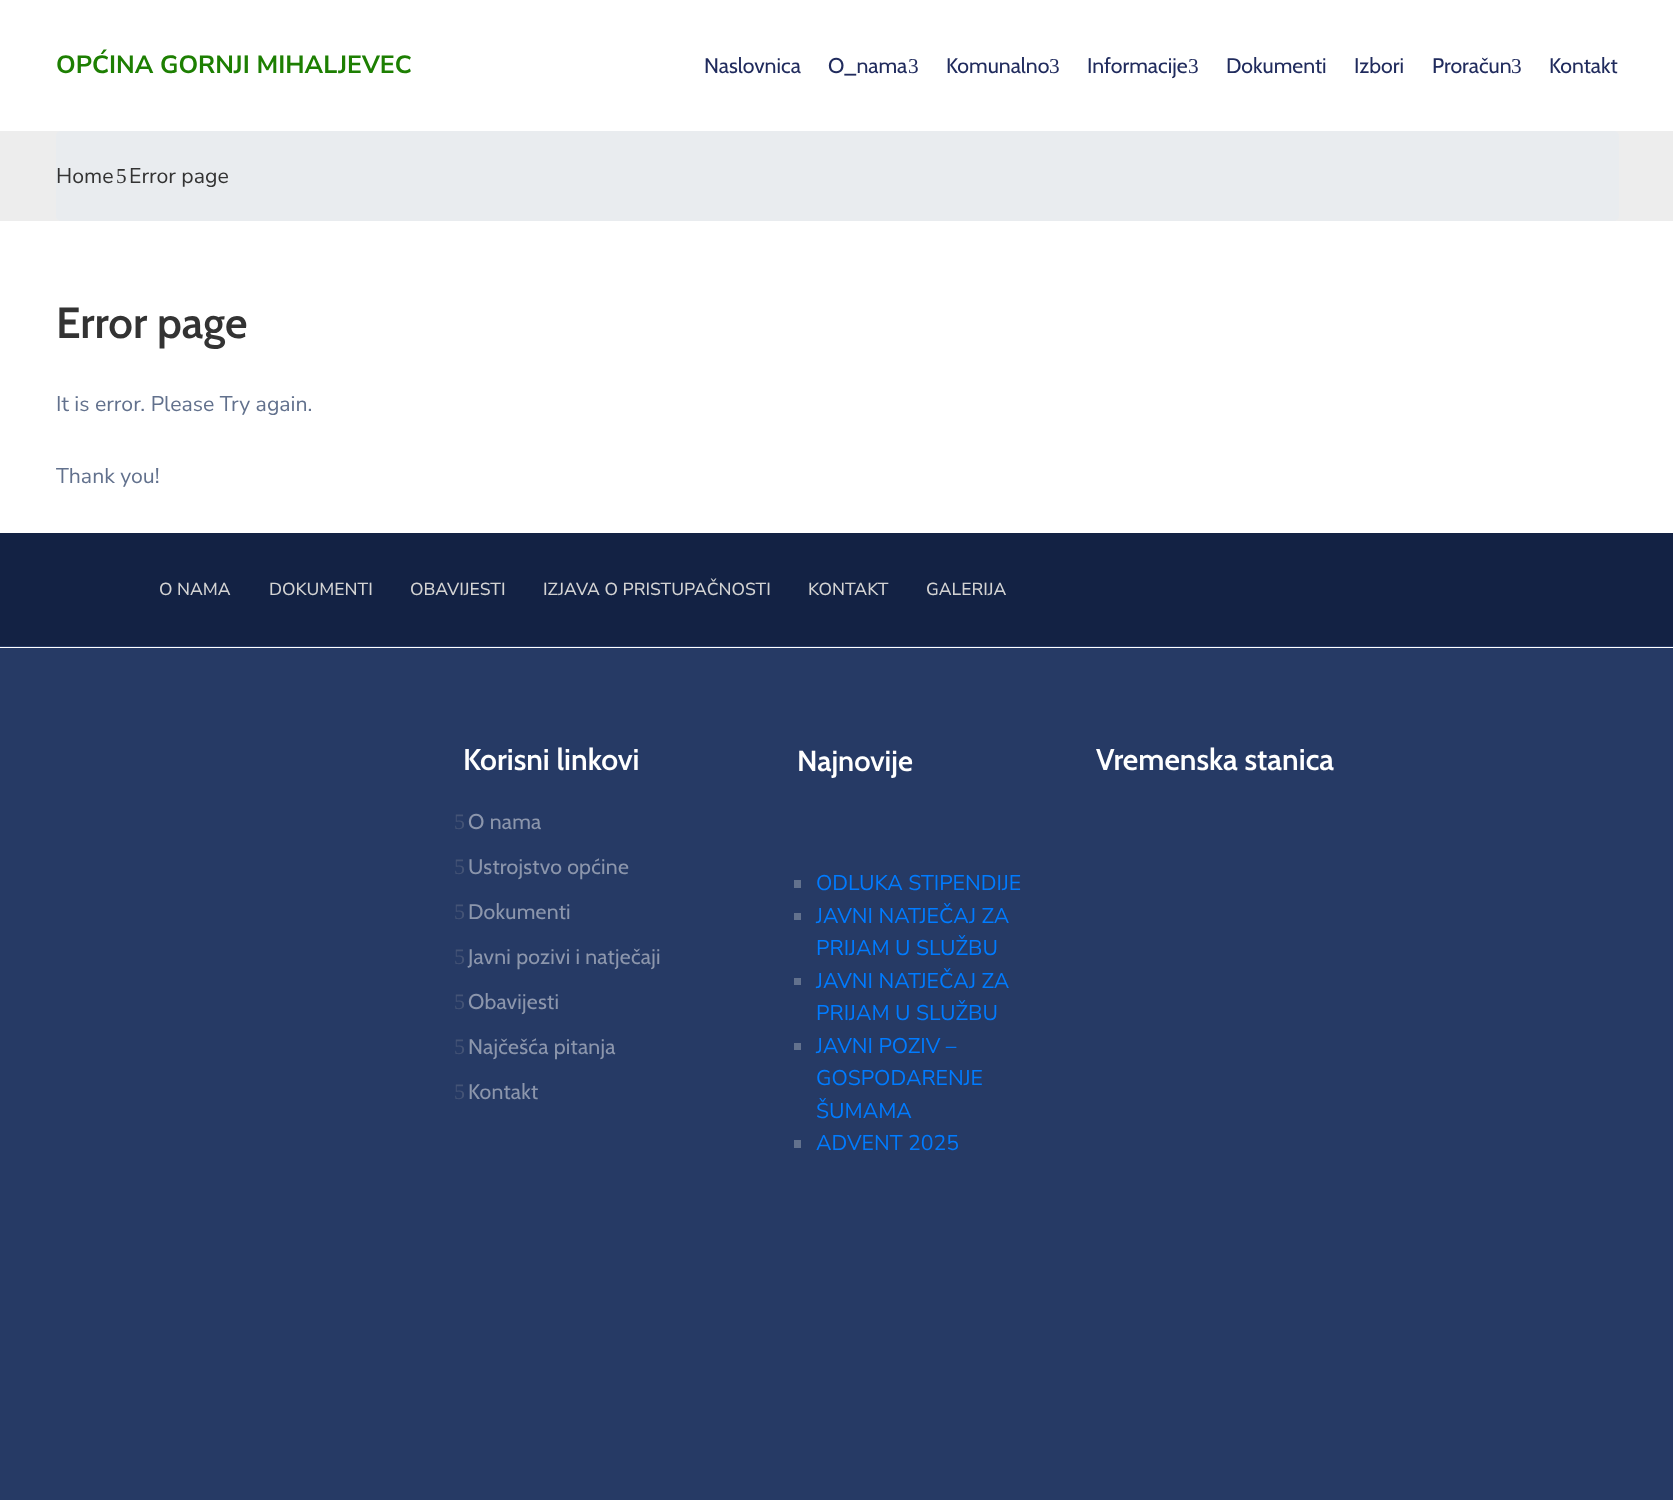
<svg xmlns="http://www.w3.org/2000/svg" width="1673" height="1500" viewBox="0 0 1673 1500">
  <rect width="100%" height="100%" fill="#ffffff"/>
  <text x="56" y="73" font-family="Nunito Sans" font-size="25" font-weight="bold" fill="#1d7f02">OPĆINA GORNJI MIHALJEVEC</text>
  <text x="704" y="73" font-family="Cabin" font-size="21.25" fill="#202b5d">Naslovnica</text>
  <text x="828" y="73" font-family="Cabin" font-size="21.25" fill="#202b5d">O_nama</text>
  <text x="908" y="73" font-family="Liberation Serif" font-size="21.25" fill="#202b5d">3</text>
  <text x="946" y="73" font-family="Cabin" font-size="21.25" fill="#202b5d">Komunalno</text>
  <text x="1049" y="73" font-family="Liberation Serif" font-size="21.25" fill="#202b5d">3</text>
  <text x="1087" y="73" font-family="Cabin" font-size="21.25" fill="#202b5d">Informacije</text>
  <text x="1188" y="73" font-family="Liberation Serif" font-size="21.25" fill="#202b5d">3</text>
  <text x="1226" y="73" font-family="Cabin" font-size="21.25" fill="#202b5d">Dokumenti</text>
  <text x="1354" y="73" font-family="Cabin" font-size="21.25" fill="#202b5d">Izbori</text>
  <text x="1432" y="73" font-family="Cabin" font-size="21.25" fill="#202b5d">Proračun</text>
  <text x="1511" y="73" font-family="Liberation Serif" font-size="21.25" fill="#202b5d">3</text>
  <text x="1549" y="73" font-family="Cabin" font-size="21.25" fill="#202b5d">Kontakt</text>
  <rect x="0" y="131" width="1673" height="90" fill="#ededed"/>
  <rect x="56" y="131" width="1563" height="90" rx="5" fill="#e9ecef"/>
  <text x="56" y="183" font-family="Nunito Sans" font-size="21.25" fill="#333333">Home</text>
  <text x="116" y="183" font-family="Liberation Serif" font-size="21.25" fill="#333333">5</text>
  <text x="129" y="183" font-family="Nunito Sans" font-size="21.25" fill="#333333">Error page</text>
  <text x="56" y="338" font-family="Cabin" font-size="43.75" font-weight="600" fill="#333333">Error page</text>
  <text x="56" y="411" font-family="Nunito Sans" font-size="21.25" fill="#62718d">It is error. Please Try again.</text>
  <text x="56" y="483" font-family="Nunito Sans" font-size="21.25" fill="#62718d">Thank you!</text>
  <rect x="0" y="533" width="1673" height="113" fill="#132244"/>
  <rect x="0" y="646" width="1673" height="1" fill="#263a65"/>
  <text x="159" y="595" font-family="Nunito Sans" font-size="17.5" font-weight="500" fill="#d3d3d3">O NAMA</text>
  <text x="269" y="595" font-family="Nunito Sans" font-size="17.5" font-weight="500" fill="#d3d3d3">DOKUMENTI</text>
  <text x="410" y="595" font-family="Nunito Sans" font-size="17.5" font-weight="500" fill="#d3d3d3">OBAVIJESTI</text>
  <text x="543" y="595" font-family="Nunito Sans" font-size="17.5" font-weight="500" fill="#d3d3d3">IZJAVA O PRISTUPAČNOSTI</text>
  <text x="808" y="595" font-family="Nunito Sans" font-size="17.5" font-weight="500" fill="#d3d3d3">KONTAKT</text>
  <text x="926" y="595" font-family="Nunito Sans" font-size="17.5" font-weight="500" fill="#d3d3d3">GALERIJA</text>
  <rect x="0" y="648" width="1673" height="852" fill="#263a65"/>
  <text x="463" y="770" font-family="Cabin" font-size="30" font-weight="600" fill="#ffffff">Korisni linkovi</text>
  <text x="454" y="829" font-family="Liberation Serif" font-size="22" letter-spacing="0.25" fill="#455476">5</text>
  <text x="468" y="829" font-family="Cabin" font-size="21.25" letter-spacing="0.25" fill="#8c96ac">O nama</text>
  <text x="454" y="874" font-family="Liberation Serif" font-size="22" letter-spacing="0.25" fill="#455476">5</text>
  <text x="468" y="874" font-family="Cabin" font-size="21.25" letter-spacing="0.25" fill="#8c96ac">Ustrojstvo općine</text>
  <text x="454" y="919" font-family="Liberation Serif" font-size="22" letter-spacing="0.25" fill="#455476">5</text>
  <text x="468" y="919" font-family="Cabin" font-size="21.25" letter-spacing="0.25" fill="#8c96ac">Dokumenti</text>
  <text x="454" y="964" font-family="Liberation Serif" font-size="22" letter-spacing="0.25" fill="#455476">5</text>
  <text x="468" y="964" font-family="Cabin" font-size="21.25" letter-spacing="0.25" fill="#8c96ac">Javni pozivi i natječaji</text>
  <text x="454" y="1009" font-family="Liberation Serif" font-size="22" letter-spacing="0.25" fill="#455476">5</text>
  <text x="468" y="1009" font-family="Cabin" font-size="21.25" letter-spacing="0.25" fill="#8c96ac">Obavijesti</text>
  <text x="454" y="1054" font-family="Liberation Serif" font-size="22" letter-spacing="0.25" fill="#455476">5</text>
  <text x="468" y="1054" font-family="Cabin" font-size="21.25" letter-spacing="0.25" fill="#8c96ac">Najčešća pitanja</text>
  <text x="454" y="1099" font-family="Liberation Serif" font-size="22" letter-spacing="0.25" fill="#455476">5</text>
  <text x="468" y="1099" font-family="Cabin" font-size="21.25" letter-spacing="0.25" fill="#8c96ac">Kontakt</text>
  <text x="797" y="771" font-family="Cabin" font-size="29" font-weight="600" fill="#ffffff">Najnovije</text>
  <rect x="794" y="880" width="7" height="8" fill="#62718d"/>
  <text x="816" y="890" font-family="Nunito Sans" font-size="21.25" fill="#007bff">ODLUKA STIPENDIJE</text>
  <rect x="794" y="913" width="7" height="7" fill="#62718d"/>
  <text x="816" y="923" font-family="Nunito Sans" font-size="21.25" fill="#007bff">JAVNI NATJEČAJ ZA</text>
  <text x="816" y="955" font-family="Nunito Sans" font-size="21.25" fill="#007bff">PRIJAM U SLUŽBU</text>
  <rect x="794" y="978" width="7" height="7" fill="#62718d"/>
  <text x="816" y="988" font-family="Nunito Sans" font-size="21.25" fill="#007bff">JAVNI NATJEČAJ ZA</text>
  <text x="816" y="1020" font-family="Nunito Sans" font-size="21.25" fill="#007bff">PRIJAM U SLUŽBU</text>
  <rect x="794" y="1043" width="7" height="7" fill="#62718d"/>
  <text x="816" y="1053" font-family="Nunito Sans" font-size="21.25" fill="#007bff">JAVNI POZIV –</text>
  <text x="816" y="1085" font-family="Nunito Sans" font-size="21.25" fill="#007bff">GOSPODARENJE</text>
  <text x="816" y="1118" font-family="Nunito Sans" font-size="21.25" fill="#007bff">ŠUMAMA</text>
  <rect x="794" y="1140" width="7" height="8" fill="#62718d"/>
  <text x="816" y="1150" font-family="Nunito Sans" font-size="21.25" fill="#007bff">ADVENT 2025</text>
  <text x="1096" y="770" font-family="Cabin" font-size="30" font-weight="600" fill="#ffffff">Vremenska stanica</text>
</svg>
